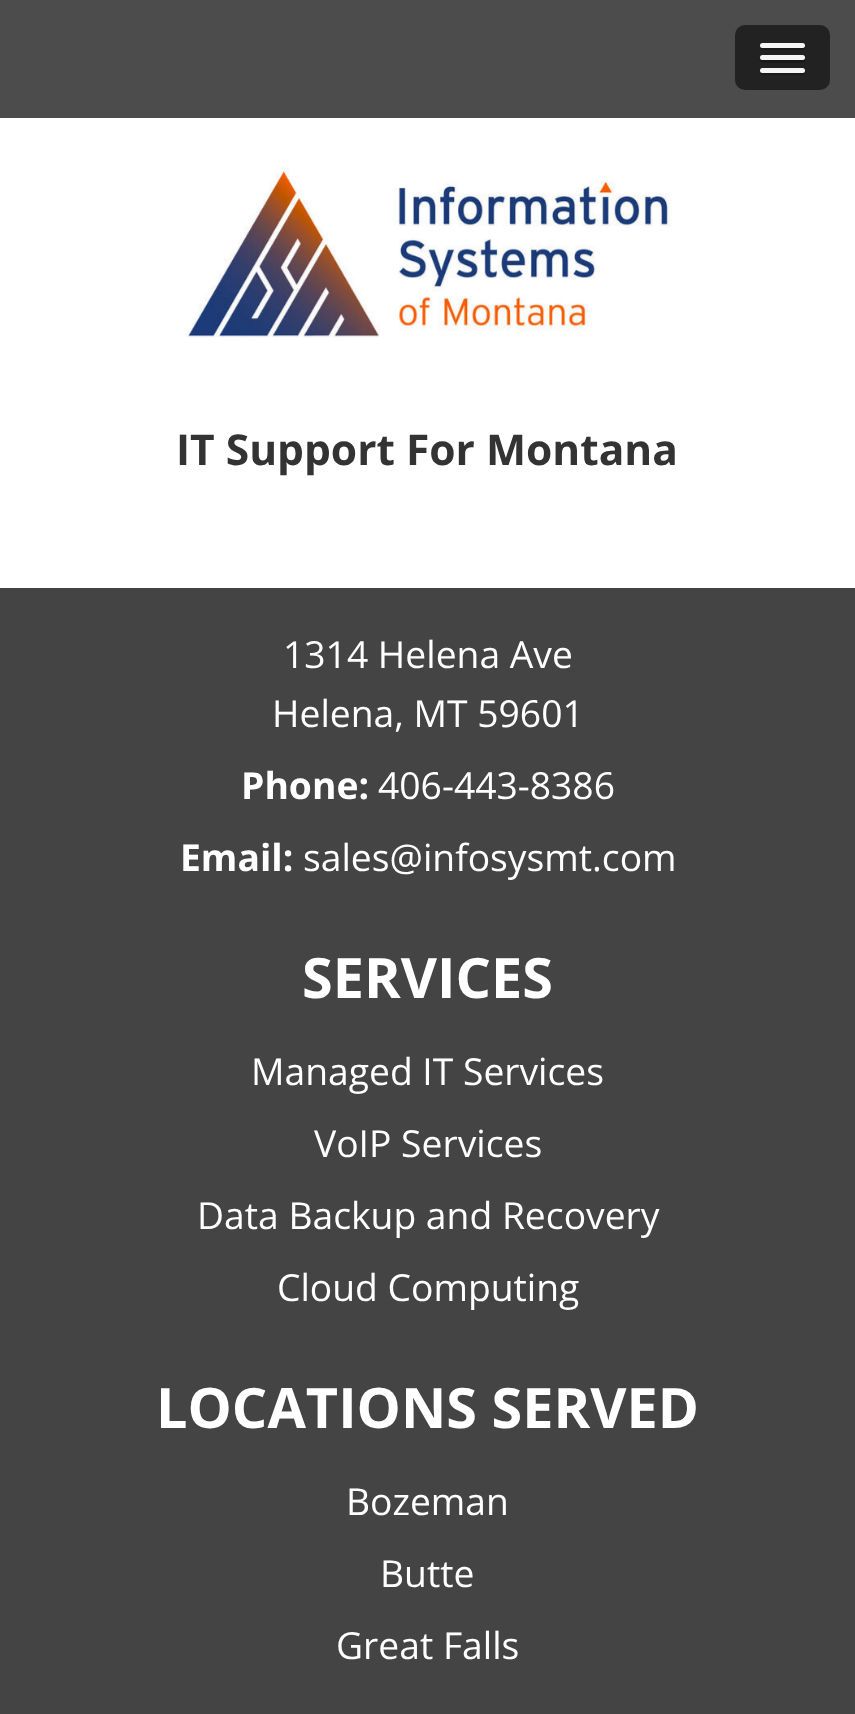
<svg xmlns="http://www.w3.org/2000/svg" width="855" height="1714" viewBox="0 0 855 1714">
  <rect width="100%" height="100%" fill="#444444"/>
  <rect x="0" y="118" width="855" height="470" fill="#ffffff"/>
  <rect x="0" y="0" width="855" height="118" fill="#4c4c4c"/>
  <rect x="735" y="25" width="95" height="65" rx="10" fill="#222222"/>
  <path d="M760 46C757 51 769 50 769 50H796C796 50 808 51 805 46C804 47 803 48 802 48H762C762 48 761 47 760 46Z" fill="#1a1a1a"/>
  <rect x="760" y="43" width="45" height="5" rx="2.5" fill="#f5f5f5"/>
  <path d="M760 59C757 63 765 63 769 63H796C800 63 808 63 805 59L803 60H762Z" fill="#1a1a1a"/>
  <rect x="760" y="55" width="45" height="5" rx="2.5" fill="#f5f5f5"/>
  <path d="M760 71C757 76 769 75 769 75H796C796 75 808 76 805 71C804 72 803 72 802 72H762C762 72 761 72 760 71Z" fill="#1a1a1a"/>
  <rect x="760" y="68" width="45" height="5" rx="2.5" fill="#f5f5f5"/>
  <image x="185" y="167" width="487" height="171" href="img1.png"/>
  <text x="176" y="465" font-family="Open Sans" font-size="42.5" font-weight="bold" fill="#333333">IT Support For Montana</text>
  <text x="283" y="668" font-family="Open Sans" font-size="37.25" fill="#ffffff">1314 Helena Ave</text>
  <text x="272" y="727" font-family="Open Sans" font-size="37.25" fill="#ffffff">Helena, MT 59601</text>
  <text x="241" y="799" font-family="Open Sans" font-size="37.25" font-weight="bold" fill="#ffffff">Phone:</text>
  <text x="378" y="799" font-family="Open Sans" font-size="37.25" fill="#ffffff">406-443-8386</text>
  <text x="180" y="871" font-family="Open Sans" font-size="37.25" font-weight="bold" fill="#ffffff">Email:</text>
  <text x="303" y="871" font-family="Open Sans" font-size="37.25" fill="#ffffff">sales@infosysmt.com</text>
  <text x="302" y="998" font-family="Open Sans" font-size="55.75" font-weight="bold" fill="#ffffff">SERVICES</text>
  <text x="251" y="1085" font-family="Open Sans" font-size="37.25" fill="#ffffff">Managed IT Services</text>
  <text x="314" y="1157" font-family="Open Sans" font-size="37.25" fill="#ffffff">VoIP Services</text>
  <text x="197" y="1229" font-family="Open Sans" font-size="37.25" fill="#ffffff">Data Backup and Recovery</text>
  <text x="277" y="1301" font-family="Open Sans" font-size="37.25" fill="#ffffff">Cloud Computing</text>
  <text x="156" y="1428" font-family="Open Sans" font-size="55.75" font-weight="bold" fill="#ffffff">LOCATIONS SERVED</text>
  <text x="346" y="1515" font-family="Open Sans" font-size="37.25" fill="#ffffff">Bozeman</text>
  <text x="380" y="1587" font-family="Open Sans" font-size="37.25" fill="#ffffff">Butte</text>
  <text x="336" y="1659" font-family="Open Sans" font-size="37.25" fill="#ffffff">Great Falls</text>
</svg>
